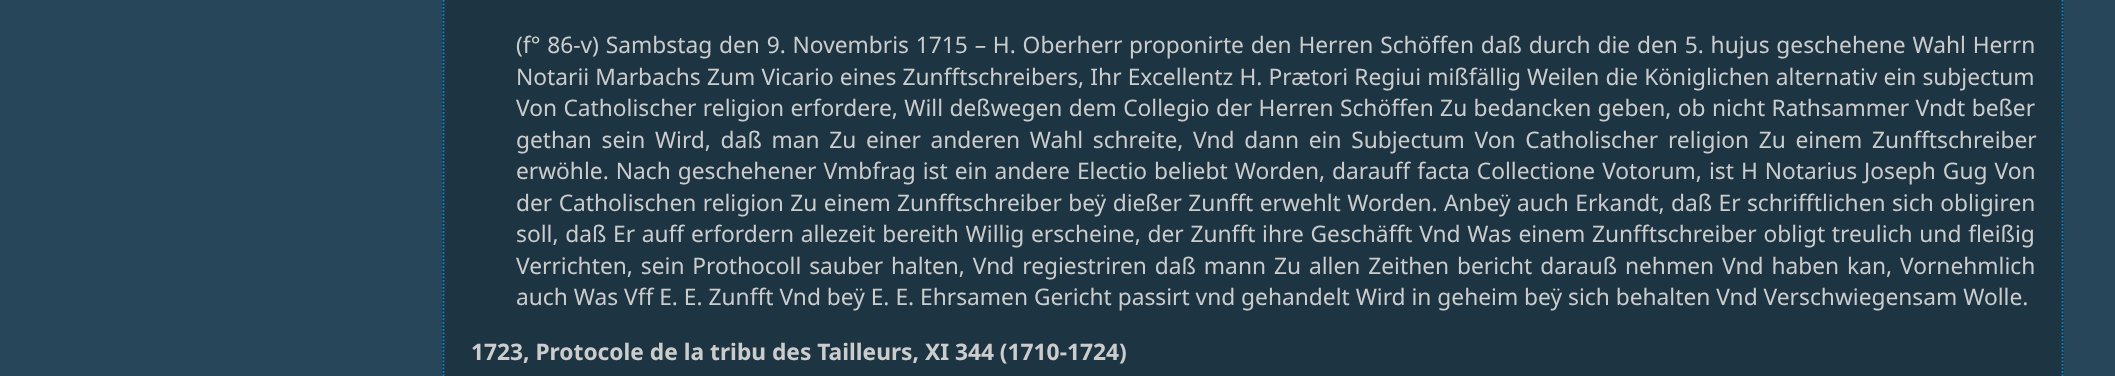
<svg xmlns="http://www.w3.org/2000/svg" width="2115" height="376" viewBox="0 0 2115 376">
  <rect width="100%" height="100%" fill="#27465a"/>
  <rect x="442" y="0" width="1622" height="376" fill="#1d3543"/>
  <path d="M2062.5-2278.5V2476" fill="none" stroke="#1084ce" stroke-width="1.8" stroke-dasharray="1.75 1.75"/>
  <path d="M443.5-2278.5V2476" fill="none" stroke="#1084ce" stroke-width="1.8" stroke-dasharray="1.75 1.75"/>
  <text x="516" y="53" word-spacing="0.9" font-family="Noto Sans" font-size="22.75" fill="#cccccc">(f° 86-v) Sambstag den 9. Novembris 1715 – H. Oberherr proponirte den Herren Schöffen daß durch die den 5. hujus geschehene Wahl Herrn</text>
  <text x="516" y="85" word-spacing="0.25" font-family="Noto Sans" font-size="22.75" fill="#cccccc">Notarii Marbachs Zum Vicario eines Zunfftschreibers, Ihr Excellentz H. Prætori Regiui mißfällig Weilen die Königlichen alternativ ein subjectum</text>
  <text x="516" y="116" word-spacing="0.5" font-family="Noto Sans" font-size="22.75" fill="#cccccc">Von Catholischer religion erfordere, Will deßwegen dem Collegio der Herren Schöffen Zu bedancken geben, ob nicht Rathsammer Vndt beßer</text>
  <text x="516" y="148" word-spacing="3.75" font-family="Noto Sans" font-size="22.75" fill="#cccccc">gethan sein Wird, daß man Zu einer anderen Wahl schreite, Vnd dann ein Subjectum Von Catholischer religion Zu einem Zunfftschreiber</text>
  <text x="516" y="179" word-spacing="1.1" font-family="Noto Sans" font-size="22.75" fill="#cccccc">erwöhle. Nach geschehener Vmbfrag ist ein andere Electio beliebt Worden, darauff facta Collectione Votorum, ist H Notarius Joseph Gug Von</text>
  <text x="516" y="211" word-spacing="0.5" font-family="Noto Sans" font-size="22.75" fill="#cccccc">der Catholischen religion Zu einem Zunfftschreiber beÿ dießer Zunfft erwehlt Worden. Anbeÿ auch Erkandt, daß Er schrifftlichen sich obligiren</text>
  <text x="516" y="242" word-spacing="0.8" font-family="Noto Sans" font-size="22.75" fill="#cccccc">soll, daß Er auff erfordern allezeit bereith Willig erscheine, der Zunfft ihre Geschäfft Vnd Was einem Zunfftschreiber obligt treulich und fleißig</text>
  <text x="516" y="274" word-spacing="2" font-family="Noto Sans" font-size="22.75" fill="#cccccc">Verrichten, sein Prothocoll sauber halten, Vnd regiestriren daß mann Zu allen Zeithen bericht darauß nehmen Vnd haben kan, Vornehmlich</text>
  <text x="516" y="305" font-family="Noto Sans" font-size="22.75" fill="#cccccc">auch Was Vff E. E. Zunfft Vnd beÿ E. E. Ehrsamen Gericht passirt vnd gehandelt Wird in geheim beÿ sich behalten Vnd Verschwiegensam Wolle.</text>
  <text x="471" y="360" font-family="Noto Sans" font-size="22.75" font-weight="bold" fill="#cccccc">1723, Protocole de la tribu des Tailleurs, XI 344 (1710-1724)</text>
</svg>
